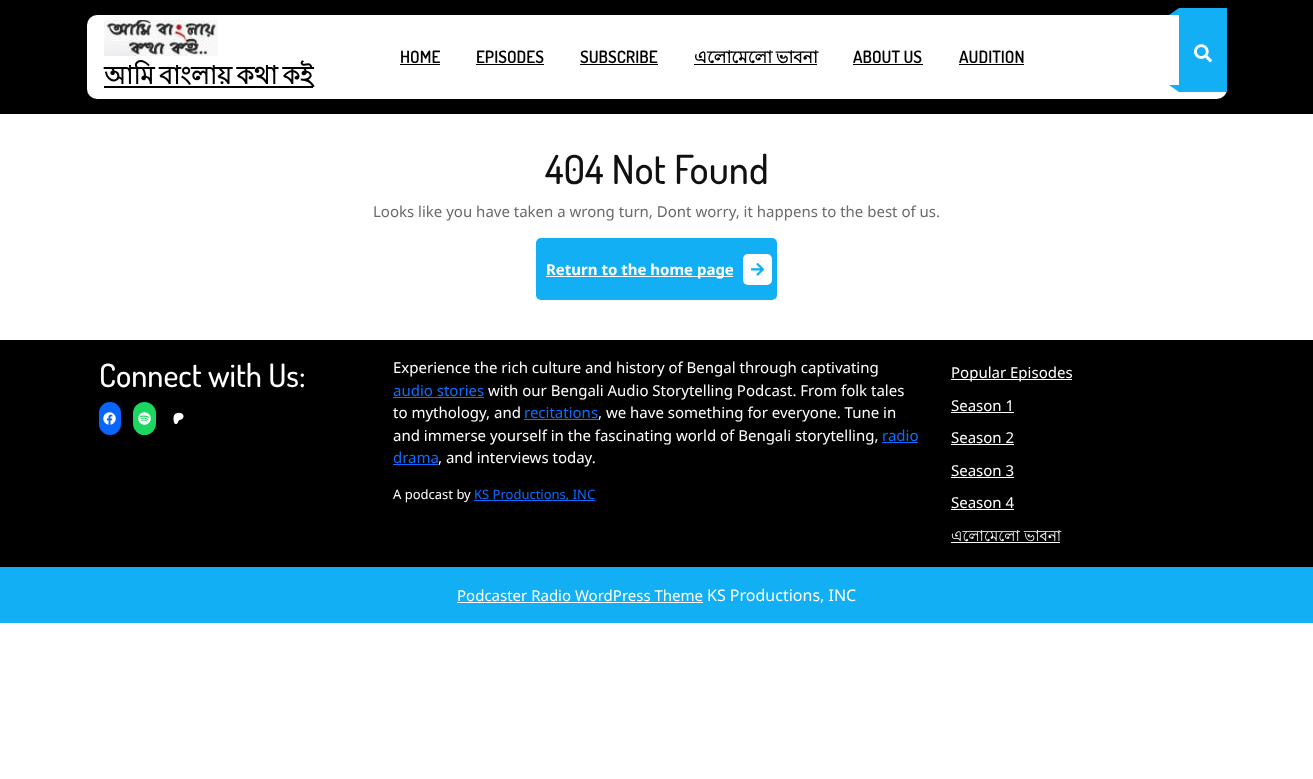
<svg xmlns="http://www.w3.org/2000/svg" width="1313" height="779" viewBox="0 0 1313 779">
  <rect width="100%" height="100%" fill="#ffffff"/>
  <rect x="0" y="0" width="1313" height="114" fill="#000000"/>
  <rect x="87" y="15" width="1140" height="84" rx="10" fill="#ffffff"/>
  <text x="400" y="63" font-family="Dosis" font-size="17" font-weight="600" fill="#000000">HOME</text>
  <rect x="400" y="64" width="40" height="1" fill="#000000"/>
  <text x="476" y="63" font-family="Dosis" font-size="17" font-weight="600" fill="#000000">EPISODES</text>
  <rect x="476" y="64" width="68" height="1" fill="#000000"/>
  <text x="580" y="63" font-family="Dosis" font-size="17" font-weight="600" fill="#000000">SUBSCRIBE</text>
  <rect x="580" y="64" width="78" height="1" fill="#000000"/>
  <text x="694" y="63" word-spacing="-1" font-family="Lohit Bengali" font-size="17" font-weight="bold" fill="#000000">এলোমেলো ভাবনা</text>
  <rect x="694" y="64" width="123" height="1" fill="#000000"/>
  <text x="853" y="63" font-family="Dosis" font-size="17" font-weight="600" fill="#000000">ABOUT US</text>
  <rect x="853" y="64" width="70" height="1" fill="#000000"/>
  <text x="959" y="63" font-family="Dosis" font-size="17" font-weight="600" fill="#000000">AUDITION</text>
  <rect x="959" y="64" width="65" height="1" fill="#000000"/>
  <rect x="1179" y="8" width="48" height="84" fill="#12aff5"/>
  <path d="M1179 15H1169L1179 8Z" fill="#12aff5"/>
  <image x="1194" y="44" width="18" height="19" href="img1.png"/>
  <path d="M1169 85H1179V92Z" fill="#12aff5"/>
  <image x="104" y="20" width="114" height="36" href="img2.png"/>
  <rect x="104" y="86" width="209" height="2" fill="#000000"/>
  <text x="104" y="84" word-spacing="-2" font-family="Lohit Bengali" font-size="25" font-weight="bold" fill="#000000">আমি বাংলায় কথা কই</text>
  <text x="545" y="184" font-family="Dosis" font-size="40" font-weight="500" fill="#101010">404 Not Found</text>
  <text x="373" y="217" font-family="Noto Sans" font-size="15" fill="#6a6a6a">Looks like you have taken a wrong turn, Dont worry, it happens to the best of us.</text>
  <rect x="536" y="238" width="241" height="62" rx="5" fill="#12aff5"/>
  <rect x="546" y="276" width="187" height="1" fill="#ffffff"/>
  <text x="546" y="275" font-family="Noto Sans" font-size="15" font-weight="bold" fill="#ffffff">Return to the home page</text>
  <rect x="743" y="254" width="29" height="31" rx="5" fill="#ffffff"/>
  <image x="751" y="263" width="14" height="13" href="img3.png"/>
  <rect x="0" y="340" width="1313" height="227" fill="#000000"/>
  <text x="99" y="387" font-family="Dosis" font-size="32" font-weight="500" fill="#ffffff">Connect with Us:</text>
  <rect x="99" y="402" width="22" height="33" rx="11" fill="#0866ff"/>
  <image x="103" y="412" width="13" height="13" href="img4.png"/>
  <rect x="133" y="402" width="23" height="33" rx="11.5" fill="#1bd760"/>
  <image x="138" y="412" width="13" height="13" href="img5.png"/>
  <image x="173" y="412" width="11" height="13" href="img6.png"/>
  <text x="393" y="373" font-family="Noto Sans" font-size="15" fill="#ffffff">Experience the rich culture and history of Bengal through captivating</text>
  <text x="393" y="396" font-family="Noto Sans" font-size="15" fill="#0d6efd">audio stories</text>
  <rect x="393" y="397" width="91" height="1" fill="#0d6efd"/>
  <text x="488" y="396" font-family="Noto Sans" font-size="15" fill="#ffffff">with our Bengali Audio Storytelling Podcast. From folk tales</text>
  <text x="393" y="418" font-family="Noto Sans" font-size="15" fill="#ffffff">to mythology, and</text>
  <text x="524" y="418" font-family="Noto Sans" font-size="15" fill="#0d6efd">recitations</text>
  <rect x="524" y="419" width="74" height="1" fill="#0d6efd"/>
  <text x="598" y="418" font-family="Noto Sans" font-size="15" fill="#ffffff">, we have something for everyone. Tune in</text>
  <text x="393" y="441" font-family="Noto Sans" font-size="15" fill="#ffffff">and immerse yourself in the fascinating world of Bengali storytelling,</text>
  <text x="882" y="441" font-family="Noto Sans" font-size="15" fill="#0d6efd">radio</text>
  <rect x="882" y="442" width="36" height="1" fill="#0d6efd"/>
  <text x="393" y="463" font-family="Noto Sans" font-size="15" fill="#0d6efd">drama</text>
  <rect x="393" y="464" width="45" height="1" fill="#0d6efd"/>
  <text x="438" y="463" font-family="Noto Sans" font-size="15" fill="#ffffff">, and interviews today.</text>
  <text x="393" y="499" font-family="Noto Sans" font-size="13" fill="#ffffff">A podcast by</text>
  <rect x="474" y="500" width="121" height="1" fill="#0d6efd"/>
  <text x="474" y="499" font-family="Noto Sans" font-size="13" fill="#0d6efd">KS Productions, INC</text>
  <rect x="951" y="379" width="121" height="1" fill="#ffffff"/>
  <text x="951" y="378" font-family="Noto Sans" font-size="15" fill="#ffffff">Popular Episodes</text>
  <text x="951" y="411" font-family="Noto Sans" font-size="15" fill="#ffffff">Season 1</text>
  <rect x="951" y="412" width="63" height="1" fill="#ffffff"/>
  <text x="951" y="443" font-family="Noto Sans" font-size="15" fill="#ffffff">Season 2</text>
  <rect x="951" y="444" width="63" height="1" fill="#ffffff"/>
  <text x="951" y="476" font-family="Noto Sans" font-size="15" fill="#ffffff">Season 3</text>
  <rect x="951" y="477" width="63" height="1" fill="#ffffff"/>
  <text x="951" y="508" font-family="Noto Sans" font-size="15" fill="#ffffff">Season 4</text>
  <rect x="951" y="509" width="63" height="1" fill="#ffffff"/>
  <text x="951" y="541" font-family="Lohit Bengali" font-size="15" fill="#ffffff">এলোমেলো ভাবনা</text>
  <rect x="951" y="542" width="109" height="1" fill="#ffffff"/>
  <rect x="0" y="567" width="1313" height="56" fill="#12aff5"/>
  <text x="457" y="601" font-family="Noto Sans" font-size="15" fill="#ffffff">Podcaster Radio WordPress Theme</text>
  <rect x="457" y="602" width="246" height="1" fill="#ffffff"/>
  <text x="707" y="601" font-family="Noto Sans" font-size="16" fill="#ffffff">KS Productions, INC</text>
</svg>
